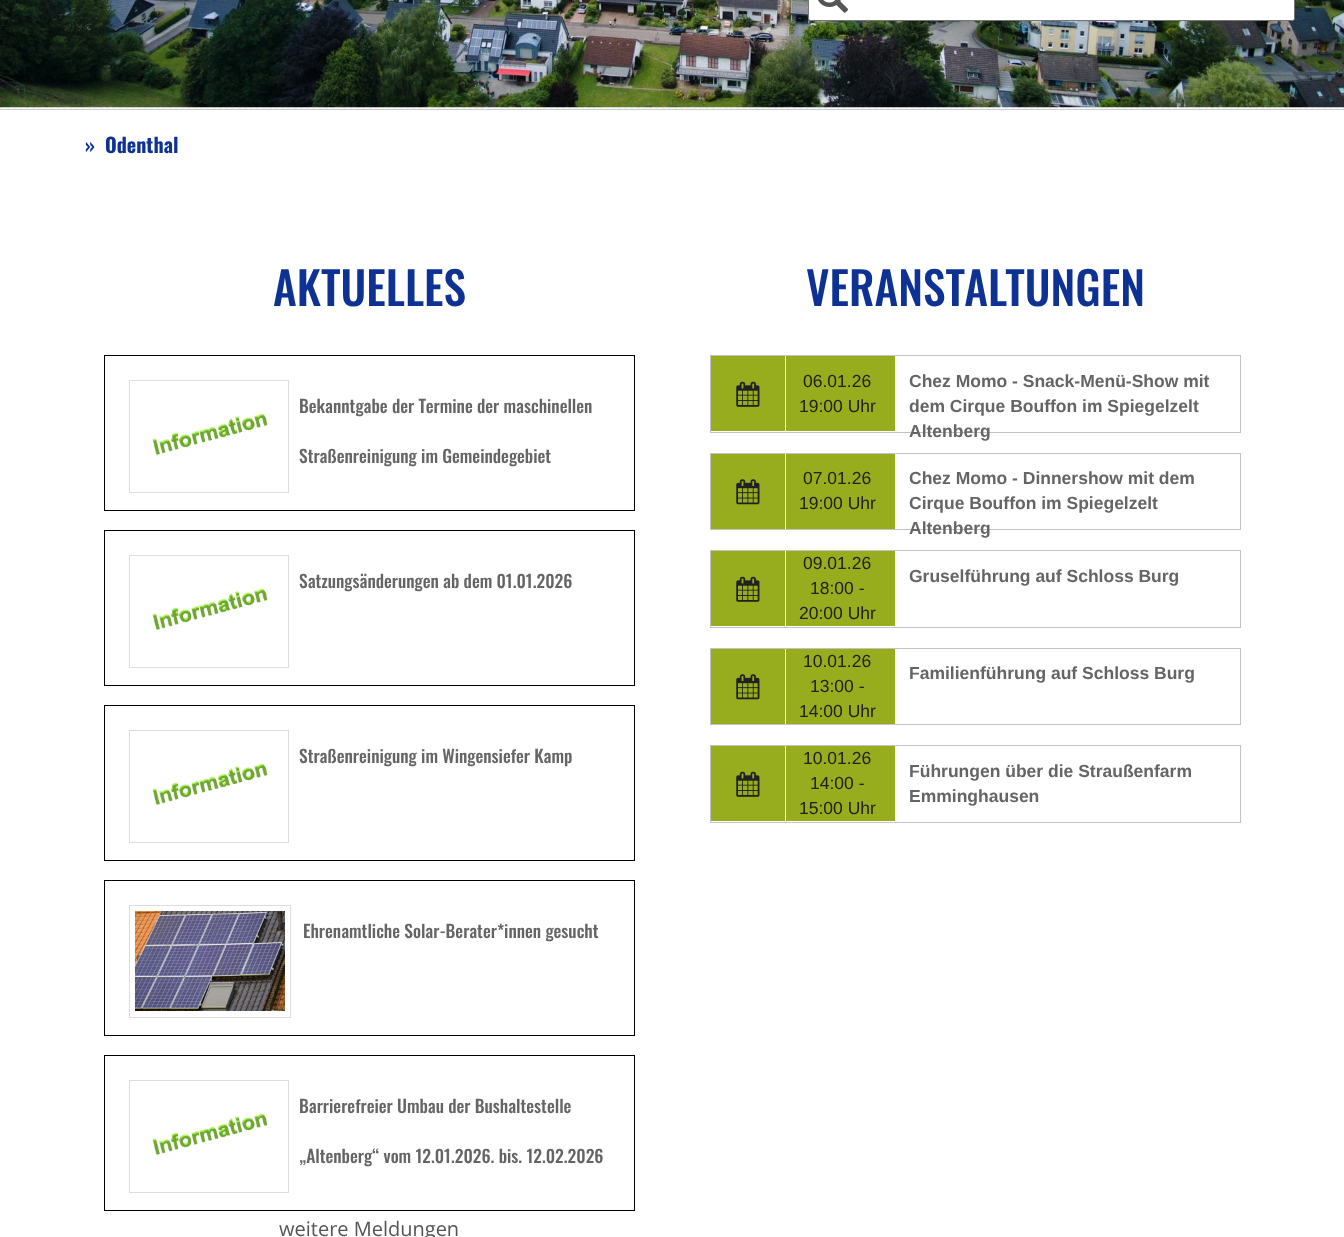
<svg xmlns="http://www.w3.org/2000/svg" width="1344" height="1237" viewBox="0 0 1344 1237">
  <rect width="100%" height="100%" fill="#ffffff"/>
  <path d="M0 108H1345" fill="none" stroke="#e7f0fb" stroke-width="1.2" stroke-dasharray="3.75 2.49"/>
  <image x="0" y="0" width="1344" height="108" href="img2.png"/>
  <rect x="808.5" y="-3.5" width="486" height="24" rx="2" fill="#ffffff" stroke="#767676"/>
  <image x="818" y="0" width="30" height="13" href="img1.png"/>
  <rect x="0" y="109" width="1344" height="1" fill="#cccccc"/>
  <text x="85" y="153" font-family="Oswald" font-size="20" font-weight="bold" fill="#0e3293">»</text>
  <text x="105" y="153" font-family="Oswald" font-size="20" font-weight="bold" fill="#0e3293">Odenthal</text>
  <text x="273" y="306" font-family="Oswald" font-size="45.5" font-weight="500" fill="#0e3293">AKTUELLES</text>
  <rect x="104.5" y="355.5" width="530" height="155" fill="none" stroke="#000000"/>
  <rect x="129.5" y="380.5" width="159" height="112" fill="none" stroke="#dddddd"/>
  <image x="152" y="413" width="116" height="42" href="img3.png"/>
  <text x="299" y="413" font-family="Oswald" font-size="17.5" font-weight="500" fill="#656565">Bekanntgabe der Termine der maschinellen</text>
  <text x="299" y="463" font-family="Oswald" font-size="17.5" font-weight="500" fill="#656565">Straßenreinigung im Gemeindegebiet</text>
  <rect x="104.5" y="530.5" width="530" height="155" fill="none" stroke="#000000"/>
  <rect x="129.5" y="555.5" width="159" height="112" fill="none" stroke="#dddddd"/>
  <image x="152" y="588" width="116" height="42" href="img3.png"/>
  <text x="299" y="588" font-family="Oswald" font-size="17.5" font-weight="500" fill="#656565">Satzungsänderungen ab dem 01.01.2026</text>
  <rect x="104.5" y="705.5" width="530" height="155" fill="none" stroke="#000000"/>
  <rect x="129.5" y="730.5" width="159" height="112" fill="none" stroke="#dddddd"/>
  <image x="152" y="763" width="116" height="42" href="img3.png"/>
  <text x="299" y="763" font-family="Oswald" font-size="17.5" font-weight="500" fill="#656565">Straßenreinigung im Wingensiefer Kamp</text>
  <rect x="104.5" y="880.5" width="530" height="155" fill="none" stroke="#000000"/>
  <rect x="129.5" y="905.5" width="161" height="112" fill="none" stroke="#dddddd"/>
  <image x="135" y="911" width="150" height="100" href="img4.png"/>
  <text x="303" y="938" font-family="Oswald" font-size="17.5" font-weight="500" fill="#656565">Ehrenamtliche Solar-Berater*innen gesucht</text>
  <rect x="104.5" y="1055.5" width="530" height="155" fill="none" stroke="#000000"/>
  <rect x="129.5" y="1080.5" width="159" height="112" fill="none" stroke="#dddddd"/>
  <image x="152" y="1113" width="116" height="42" href="img3.png"/>
  <text x="299" y="1113" font-family="Oswald" font-size="17.5" font-weight="500" fill="#656565">Barrierefreier Umbau der Bushaltestelle</text>
  <text x="299" y="1163" font-family="Oswald" font-size="17.5" font-weight="500" fill="#656565">„Altenberg“ vom 12.01.2026. bis. 12.02.2026</text>
  <text x="279" y="1236" font-family="Open Sans" font-size="20" fill="#555555">weitere Meldungen</text>
  <text x="806" y="306" font-family="Oswald" font-size="45.5" font-weight="500" fill="#0e3293">VERANSTALTUNGEN</text>
  <rect x="710.5" y="355.5" width="530" height="77" fill="none" stroke="#c3c3c3"/>
  <rect x="711" y="356" width="184" height="75" fill="#97ad1e"/>
  <rect x="785" y="356" width="1" height="75" fill="#ffffff"/>
  <image x="736" y="381" width="24" height="26" href="img5.png"/>
  <text x="803" y="387" font-family="Liberation Sans" font-size="17.5" fill="#212121">06.01.26</text>
  <text x="799" y="412" font-family="Liberation Sans" font-size="17.5" fill="#212121">19:00 Uhr</text>
  <text x="909" y="387" font-family="Liberation Sans" font-size="17.5" font-weight="bold" fill="#656565">Chez Momo - Snack-Menü-Show mit</text>
  <text x="909" y="412" font-family="Liberation Sans" font-size="17.5" font-weight="bold" fill="#656565">dem Cirque Bouffon im Spiegelzelt</text>
  <text x="909" y="437" font-family="Liberation Sans" font-size="17.5" font-weight="bold" fill="#656565">Altenberg</text>
  <rect x="710.5" y="453.5" width="530" height="76" fill="none" stroke="#c3c3c3"/>
  <rect x="711" y="454" width="184" height="75" fill="#97ad1e"/>
  <rect x="785" y="454" width="1" height="75" fill="#ffffff"/>
  <image x="736" y="479" width="24" height="26" href="img6.png"/>
  <text x="803" y="484" font-family="Liberation Sans" font-size="17.5" fill="#212121">07.01.26</text>
  <text x="799" y="509" font-family="Liberation Sans" font-size="17.5" fill="#212121">19:00 Uhr</text>
  <text x="909" y="484" font-family="Liberation Sans" font-size="17.5" font-weight="bold" fill="#656565">Chez Momo - Dinnershow mit dem</text>
  <text x="909" y="509" font-family="Liberation Sans" font-size="17.5" font-weight="bold" fill="#656565">Cirque Bouffon im Spiegelzelt</text>
  <text x="909" y="534" font-family="Liberation Sans" font-size="17.5" font-weight="bold" fill="#656565">Altenberg</text>
  <rect x="710.5" y="550.5" width="530" height="77" fill="none" stroke="#c3c3c3"/>
  <rect x="711" y="551" width="184" height="75" fill="#97ad1e"/>
  <rect x="785" y="551" width="1" height="75" fill="#ffffff"/>
  <image x="736" y="576" width="24" height="26" href="img5.png"/>
  <text x="803" y="569" font-family="Liberation Sans" font-size="17.5" fill="#212121">09.01.26</text>
  <text x="810" y="594" font-family="Liberation Sans" font-size="17.5" fill="#212121">18:00 -</text>
  <text x="799" y="619" font-family="Liberation Sans" font-size="17.5" fill="#212121">20:00 Uhr</text>
  <text x="909" y="582" font-family="Liberation Sans" font-size="17.5" font-weight="bold" fill="#656565">Gruselführung auf Schloss Burg</text>
  <rect x="710.5" y="648.5" width="530" height="76" fill="none" stroke="#c3c3c3"/>
  <rect x="711" y="649" width="184" height="75" fill="#97ad1e"/>
  <rect x="785" y="649" width="1" height="75" fill="#ffffff"/>
  <image x="736" y="674" width="24" height="26" href="img6.png"/>
  <text x="803" y="667" font-family="Liberation Sans" font-size="17.5" fill="#212121">10.01.26</text>
  <text x="810" y="692" font-family="Liberation Sans" font-size="17.5" fill="#212121">13:00 -</text>
  <text x="799" y="717" font-family="Liberation Sans" font-size="17.5" fill="#212121">14:00 Uhr</text>
  <text x="909" y="679" font-family="Liberation Sans" font-size="17.5" font-weight="bold" fill="#656565">Familienführung auf Schloss Burg</text>
  <rect x="710.5" y="745.5" width="530" height="77" fill="none" stroke="#c3c3c3"/>
  <rect x="711" y="746" width="184" height="75" fill="#97ad1e"/>
  <rect x="785" y="746" width="1" height="75" fill="#ffffff"/>
  <image x="736" y="771" width="24" height="26" href="img5.png"/>
  <text x="803" y="764" font-family="Liberation Sans" font-size="17.5" fill="#212121">10.01.26</text>
  <text x="810" y="789" font-family="Liberation Sans" font-size="17.5" fill="#212121">14:00 -</text>
  <text x="799" y="814" font-family="Liberation Sans" font-size="17.5" fill="#212121">15:00 Uhr</text>
  <text x="909" y="777" font-family="Liberation Sans" font-size="17.5" font-weight="bold" fill="#656565">Führungen über die Straußenfarm</text>
  <text x="909" y="802" font-family="Liberation Sans" font-size="17.5" font-weight="bold" fill="#656565">Emminghausen</text>
</svg>
